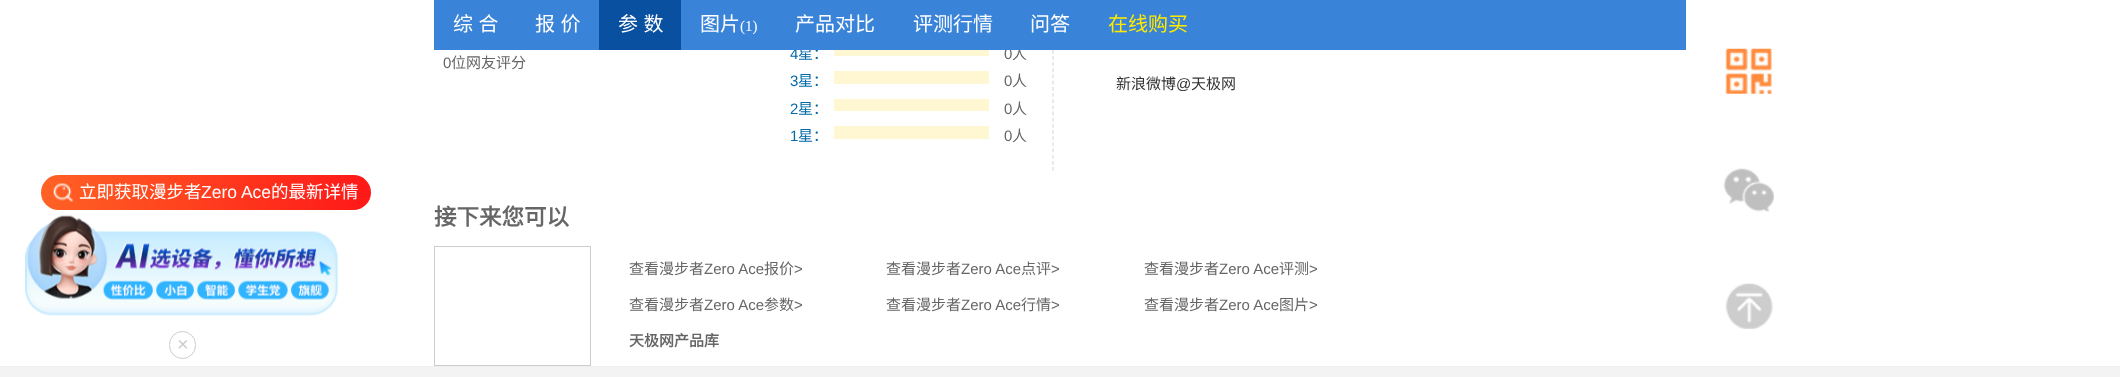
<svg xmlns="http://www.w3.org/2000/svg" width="2120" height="377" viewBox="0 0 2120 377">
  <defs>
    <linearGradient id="g1" gradientUnits="userSpaceOnUse" x1="41" y1="193" x2="371" y2="193"><stop offset="0" stop-color="#ff6224"/><stop offset="1" stop-color="#ff1818"/></linearGradient>
  </defs>
  <rect width="100%" height="100%" fill="#ffffff"/>
  <text x="790" y="59" font-family="Liberation Sans" font-size="15" fill="#0368a8">4</text>
  <text x="798" y="59" font-family="Noto Sans CJK SC" font-size="15" fill="#0368a8">星：</text>
  <text x="1004" y="59" font-family="Liberation Sans" font-size="15" fill="#666666">0</text>
  <text x="1012" y="59" font-family="Noto Sans CJK SC" font-size="15" fill="#666666">人</text>
  <path d="M1053-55V171" fill="none" stroke="#dbdbdb" stroke-width="1.2" stroke-dasharray="3.75 2.42"/>
  <rect x="434" y="0" width="1252" height="50" fill="#3983d8"/>
  <text x="453" y="31" word-spacing="1" font-family="Noto Sans CJK SC" font-size="20" fill="#ffffff">综 合</text>
  <text x="535" y="31" word-spacing="1" font-family="Noto Sans CJK SC" font-size="20" fill="#ffffff">报 价</text>
  <rect x="599" y="0" width="82" height="50" fill="#0a50a1"/>
  <text x="618" y="31" word-spacing="1" font-family="Noto Sans CJK SC" font-size="20" fill="#ffffff">参 数</text>
  <text x="700" y="31" font-family="Noto Sans CJK SC" font-size="20" fill="#ffffff">图片</text>
  <text x="740" y="31" font-family="Liberation Serif" font-size="15" fill="#ffffff">(1)</text>
  <text x="795" y="31" font-family="Noto Sans CJK SC" font-size="20" fill="#ffffff">产品对比</text>
  <text x="913" y="31" font-family="Noto Sans CJK SC" font-size="20" fill="#ffffff">评测行情</text>
  <text x="1030" y="31" font-family="Noto Sans CJK SC" font-size="20" fill="#ffffff">问答</text>
  <text x="1108" y="31" font-family="Noto Sans CJK SC" font-size="20" fill="#ffea00">在线购买</text>
  <rect x="41" y="175" width="330" height="35" rx="17.5" fill="url(#g1)"/>
  <image x="53" y="183" width="20" height="19" href="img1.png"/>
  <text x="79" y="198" font-family="Noto Sans CJK SC" font-size="17.5" fill="#ffffff">立即获取漫步者</text>
  <text x="201" y="198" font-family="Liberation Sans" font-size="17.5" fill="#ffffff">Zero Ace</text>
  <text x="271" y="198" font-family="Noto Sans CJK SC" font-size="17.5" fill="#ffffff">的最新详情</text>
  <image x="25" y="215" width="313" height="101" href="img2.png"/>
  <rect x="169.5" y="331.5" width="26" height="27" rx="13" fill="none" stroke="#cccccc"/>
  <text x="177" y="351" font-family="Liberation Sans" font-size="20" fill="#cccccc">×</text>
  <text x="443" y="68" font-family="Liberation Sans" font-size="15" fill="#666666">0</text>
  <text x="451" y="68" font-family="Noto Sans CJK SC" font-size="15" fill="#666666">位网友评分</text>
  <rect x="834" y="50" width="155" height="6" fill="#fff7d2"/>
  <text x="790" y="86" font-family="Liberation Sans" font-size="15" fill="#0368a8">3</text>
  <text x="798" y="86" font-family="Noto Sans CJK SC" font-size="15" fill="#0368a8">星：</text>
  <rect x="834" y="71" width="155" height="13" fill="#fff7d2"/>
  <text x="1004" y="86" font-family="Liberation Sans" font-size="15" fill="#666666">0</text>
  <text x="1012" y="86" font-family="Noto Sans CJK SC" font-size="15" fill="#666666">人</text>
  <text x="790" y="114" font-family="Liberation Sans" font-size="15" fill="#0368a8">2</text>
  <text x="798" y="114" font-family="Noto Sans CJK SC" font-size="15" fill="#0368a8">星：</text>
  <rect x="834" y="99" width="155" height="12" fill="#fff7d2"/>
  <text x="1004" y="114" font-family="Liberation Sans" font-size="15" fill="#666666">0</text>
  <text x="1012" y="114" font-family="Noto Sans CJK SC" font-size="15" fill="#666666">人</text>
  <text x="790" y="141" font-family="Liberation Sans" font-size="15" fill="#0368a8">1</text>
  <text x="798" y="141" font-family="Noto Sans CJK SC" font-size="15" fill="#0368a8">星：</text>
  <rect x="834" y="126" width="155" height="13" fill="#fff7d2"/>
  <text x="1004" y="141" font-family="Liberation Sans" font-size="15" fill="#666666">0</text>
  <text x="1012" y="141" font-family="Noto Sans CJK SC" font-size="15" fill="#666666">人</text>
  <text x="1116" y="89" font-family="Noto Sans CJK SC" font-size="15" fill="#333333">新浪微博</text>
  <text x="1176" y="89" font-family="Liberation Sans" font-size="15" fill="#333333">@</text>
  <text x="1191" y="89" font-family="Noto Sans CJK SC" font-size="15" fill="#333333">天极网</text>
  <text x="434" y="225" font-family="Noto Sans CJK SC" font-size="22.5" font-weight="bold" fill="#666666">接下来您可以</text>
  <rect x="434.5" y="246.5" width="156" height="119" fill="none" stroke="#cccccc"/>
  <text x="629" y="274" font-family="Noto Sans CJK SC" font-size="15" fill="#666666">查看漫步者</text>
  <text x="704" y="274" font-family="Liberation Sans" font-size="15" fill="#666666">Zero Ace</text>
  <text x="764" y="274" font-family="Noto Sans CJK SC" font-size="15" fill="#666666">报价</text>
  <text x="794" y="274" font-family="Liberation Sans" font-size="15" fill="#666666">&gt;</text>
  <text x="886" y="274" font-family="Noto Sans CJK SC" font-size="15" fill="#666666">查看漫步者</text>
  <text x="961" y="274" font-family="Liberation Sans" font-size="15" fill="#666666">Zero Ace</text>
  <text x="1021" y="274" font-family="Noto Sans CJK SC" font-size="15" fill="#666666">点评</text>
  <text x="1051" y="274" font-family="Liberation Sans" font-size="15" fill="#666666">&gt;</text>
  <text x="1144" y="274" font-family="Noto Sans CJK SC" font-size="15" fill="#666666">查看漫步者</text>
  <text x="1219" y="274" font-family="Liberation Sans" font-size="15" fill="#666666">Zero Ace</text>
  <text x="1279" y="274" font-family="Noto Sans CJK SC" font-size="15" fill="#666666">评测</text>
  <text x="1309" y="274" font-family="Liberation Sans" font-size="15" fill="#666666">&gt;</text>
  <text x="629" y="310" font-family="Noto Sans CJK SC" font-size="15" fill="#666666">查看漫步者</text>
  <text x="704" y="310" font-family="Liberation Sans" font-size="15" fill="#666666">Zero Ace</text>
  <text x="764" y="310" font-family="Noto Sans CJK SC" font-size="15" fill="#666666">参数</text>
  <text x="794" y="310" font-family="Liberation Sans" font-size="15" fill="#666666">&gt;</text>
  <text x="886" y="310" font-family="Noto Sans CJK SC" font-size="15" fill="#666666">查看漫步者</text>
  <text x="961" y="310" font-family="Liberation Sans" font-size="15" fill="#666666">Zero Ace</text>
  <text x="1021" y="310" font-family="Noto Sans CJK SC" font-size="15" fill="#666666">行情</text>
  <text x="1051" y="310" font-family="Liberation Sans" font-size="15" fill="#666666">&gt;</text>
  <text x="1144" y="310" font-family="Noto Sans CJK SC" font-size="15" fill="#666666">查看漫步者</text>
  <text x="1219" y="310" font-family="Liberation Sans" font-size="15" fill="#666666">Zero Ace</text>
  <text x="1279" y="310" font-family="Noto Sans CJK SC" font-size="15" fill="#666666">图片</text>
  <text x="1309" y="310" font-family="Liberation Sans" font-size="15" fill="#666666">&gt;</text>
  <text x="629" y="346" font-family="Noto Sans CJK SC" font-size="15" font-weight="bold" fill="#666666">天极网产品库</text>
  <image x="1725" y="48" width="47" height="46" href="img3.png"/>
  <image x="1723" y="168" width="51" height="44" href="img4.png"/>
  <image x="1725" y="283" width="48" height="46" href="img5.png"/>
  <rect x="0" y="367" width="2120" height="10" fill="#f3f3f3"/>
  <rect x="0" y="366" width="2120" height="1" fill="#eeeeee"/>
</svg>
